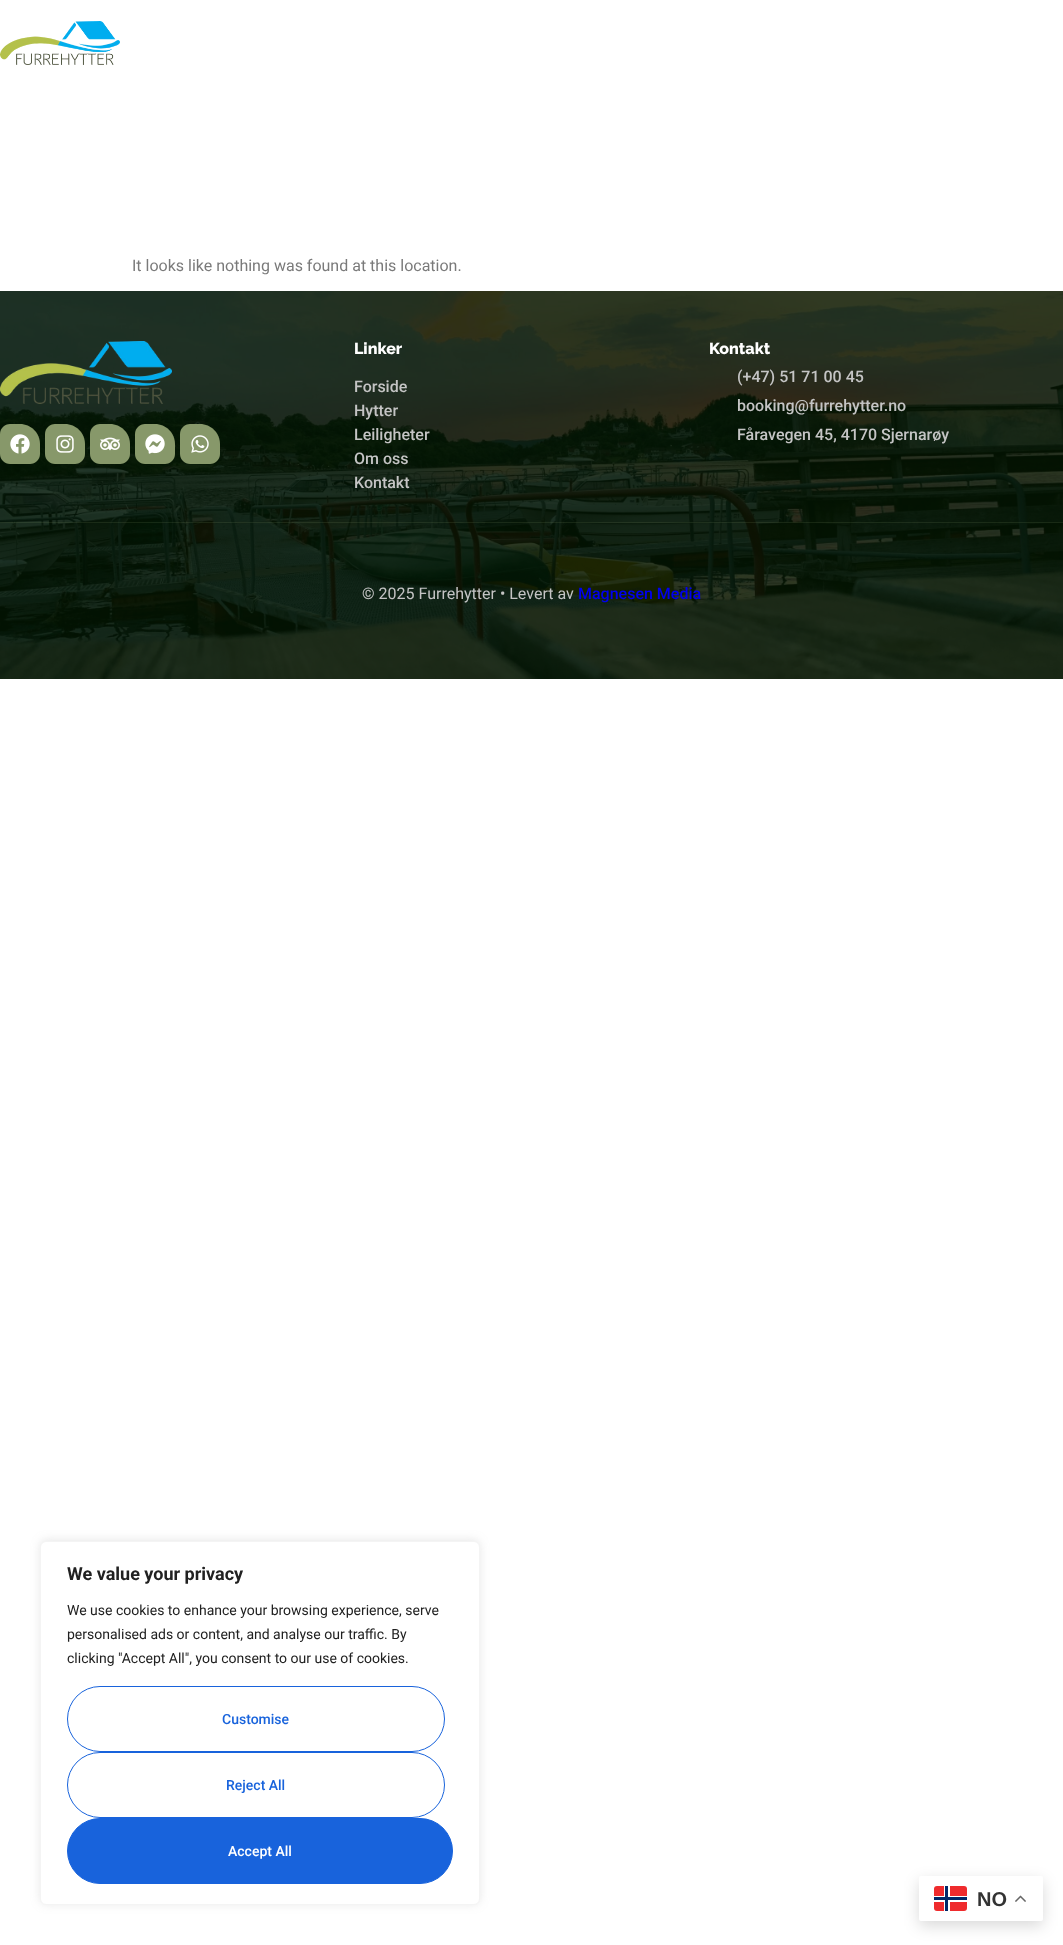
<svg xmlns="http://www.w3.org/2000/svg" width="1063" height="1945" viewBox="0 0 1063 1945">
  <defs>
    <filter id="blur1" x="-50%" y="-200%" width="200%" height="500%"><feGaussianBlur stdDeviation="5"/></filter>
    <filter id="blur2" x="-50%" y="-200%" width="200%" height="500%"><feGaussianBlur stdDeviation="7.5"/></filter>
  </defs>
  <rect width="100%" height="100%" fill="#ffffff"/>
  <image x="0" y="21" width="120" height="44" href="img1.png"/>
  <text x="132" y="271" font-family="Roboto" font-size="16" fill="#7a7a7a">It looks like nothing was found at this location.</text>
  <image x="0" y="291" width="1063" height="388" href="img2.png"/>
  <image x="0" y="341" width="172" height="63" href="img3.png"/>
  <path d="M10 424H20C31 424 40 433 40 444V454C40 459.5 35.5 464 30 464H10C4.5 464 0 459.5 0 454V434C0 428.5 4.5 424 10 424Z" fill="#87986a"/>
  <image x="10" y="434" width="20" height="20" href="img4.png"/>
  <path d="M55 424H65C76 424 85 433 85 444V454C85 459.5 80.5 464 75 464H55C49.5 464 45 459.5 45 454V434C45 428.5 49.5 424 55 424Z" fill="#87986a"/>
  <image x="56" y="435" width="18" height="18" href="img5.png"/>
  <path d="M100 424H110C121 424 130 433 130 444V454C130 459.5 125.5 464 120 464H100C94.5 464 90 459.5 90 454V434C90 428.5 94.5 424 100 424Z" fill="#87986a"/>
  <image x="100" y="437" width="20" height="14" href="img6.png"/>
  <path d="M145 424H155C166 424 175 433 175 444V454C175 459.5 170.5 464 165 464H145C139.5 464 135 459.5 135 454V434C135 428.5 139.5 424 145 424Z" fill="#87986a"/>
  <image x="145" y="434" width="20" height="20" href="img7.png"/>
  <path d="M190 424H200C211 424 220 433 220 444V454C220 459.5 215.5 464 210 464H190C184.5 464 180 459.5 180 454V434C180 428.5 184.5 424 190 424Z" fill="#87986a"/>
  <image x="191" y="435" width="18" height="18" href="img8.png"/>
  <text x="354" y="354" font-family="Raleway" font-size="16" font-weight="800" fill="#ffffff">Linker</text>
  <text x="354" y="392" font-family="Roboto" font-size="16" font-weight="500" fill="#c4c4c4">Forside</text>
  <text x="354" y="416" font-family="Roboto" font-size="16" font-weight="500" fill="#c4c4c4">Hytter</text>
  <text x="354" y="440" font-family="Roboto" font-size="16" font-weight="500" fill="#c4c4c4">Leiligheter</text>
  <text x="354" y="464" font-family="Roboto" font-size="16" font-weight="500" fill="#c4c4c4">Om oss</text>
  <text x="354" y="488" font-family="Roboto" font-size="16" font-weight="500" fill="#c4c4c4">Kontakt</text>
  <text x="709" y="354" font-family="Raleway" font-size="16" font-weight="800" fill="#ffffff">Kontakt</text>
  <text x="737" y="382" font-family="Roboto" font-size="16" font-weight="500" fill="#c4c4c4">(+47) 51 71 00 45</text>
  <text x="737" y="411" font-family="Roboto" font-size="16" font-weight="500" fill="#c4c4c4">booking@furrehytter.no</text>
  <text x="737" y="440" font-family="Roboto" font-size="16" font-weight="500" fill="#c4c4c4">Fåravegen 45, 4170 Sjernarøy</text>
  <rect x="0" y="522" width="1063" height="1" fill="#87986a" fill-opacity="0.15"/>
  <text x="362" y="599" font-family="Roboto" font-size="16" fill="#c4c4c4">© 2025 Furrehytter • Levert av</text>
  <text x="578" y="599" font-family="Roboto" font-size="16" font-weight="500" fill="#0000ee">Magnesen Media</text>
  <rect x="40" y="1540" width="440" height="364" rx="6" fill="#acabab" fill-opacity="0.3" filter="url(#blur1)"/>
  <rect x="40.5" y="1541.5" width="439" height="363" rx="5.5" fill="#ffffff" stroke="#f4f4f4"/>
  <text x="67" y="1580" font-family="Roboto" font-size="18" font-weight="bold" fill="#212121">We value your privacy</text>
  <text x="67" y="1615" font-family="Roboto" font-size="14" fill="#212121">We use cookies to enhance your browsing experience, serve</text>
  <text x="67" y="1639" font-family="Roboto" font-size="14" fill="#212121">personalised ads or content, and analyse our traffic. By</text>
  <text x="67" y="1663" font-family="Roboto" font-size="14" fill="#212121">clicking "Accept All", you consent to our use of cookies.</text>
  <rect x="67.5" y="1686.5" width="377" height="65" rx="32.5" fill="none" stroke="#1863dc"/>
  <text x="222" y="1724" font-family="Roboto" font-size="14" font-weight="500" fill="#1863dc">Customise</text>
  <rect x="67.5" y="1752.5" width="377" height="65" rx="32.5" fill="none" stroke="#1863dc"/>
  <text x="226" y="1790" font-family="Roboto" font-size="14" font-weight="500" fill="#1863dc">Reject All</text>
  <rect x="67.5" y="1818.5" width="385" height="65" rx="32.5" fill="#1863dc" stroke="#1863dc"/>
  <text x="228" y="1856" font-family="Roboto" font-size="14" font-weight="500" fill="#ffffff">Accept All</text>
  <rect x="919" y="1881" width="124" height="45" rx="2" fill="#000000" fill-opacity="0.15" filter="url(#blur2)"/>
  <rect x="919" y="1876" width="124" height="45" rx="2" fill="#ffffff"/>
  <rect x="934" y="1886" width="33" height="25" rx="3" fill="#ef2b2d"/>
  <rect x="944" y="1886" width="6" height="25" fill="#ffffff"/>
  <rect x="934" y="1896" width="33" height="6" fill="#ffffff"/>
  <rect x="945" y="1886" width="3" height="25" fill="#002868"/>
  <rect x="934" y="1897" width="33" height="3" fill="#002868"/>
  <text x="977" y="1906" font-family="Liberation Sans" font-size="20" font-weight="bold" fill="#333333">NO</text>
  <image x="1015" y="1895" width="11" height="7" href="img9.png"/>
</svg>
